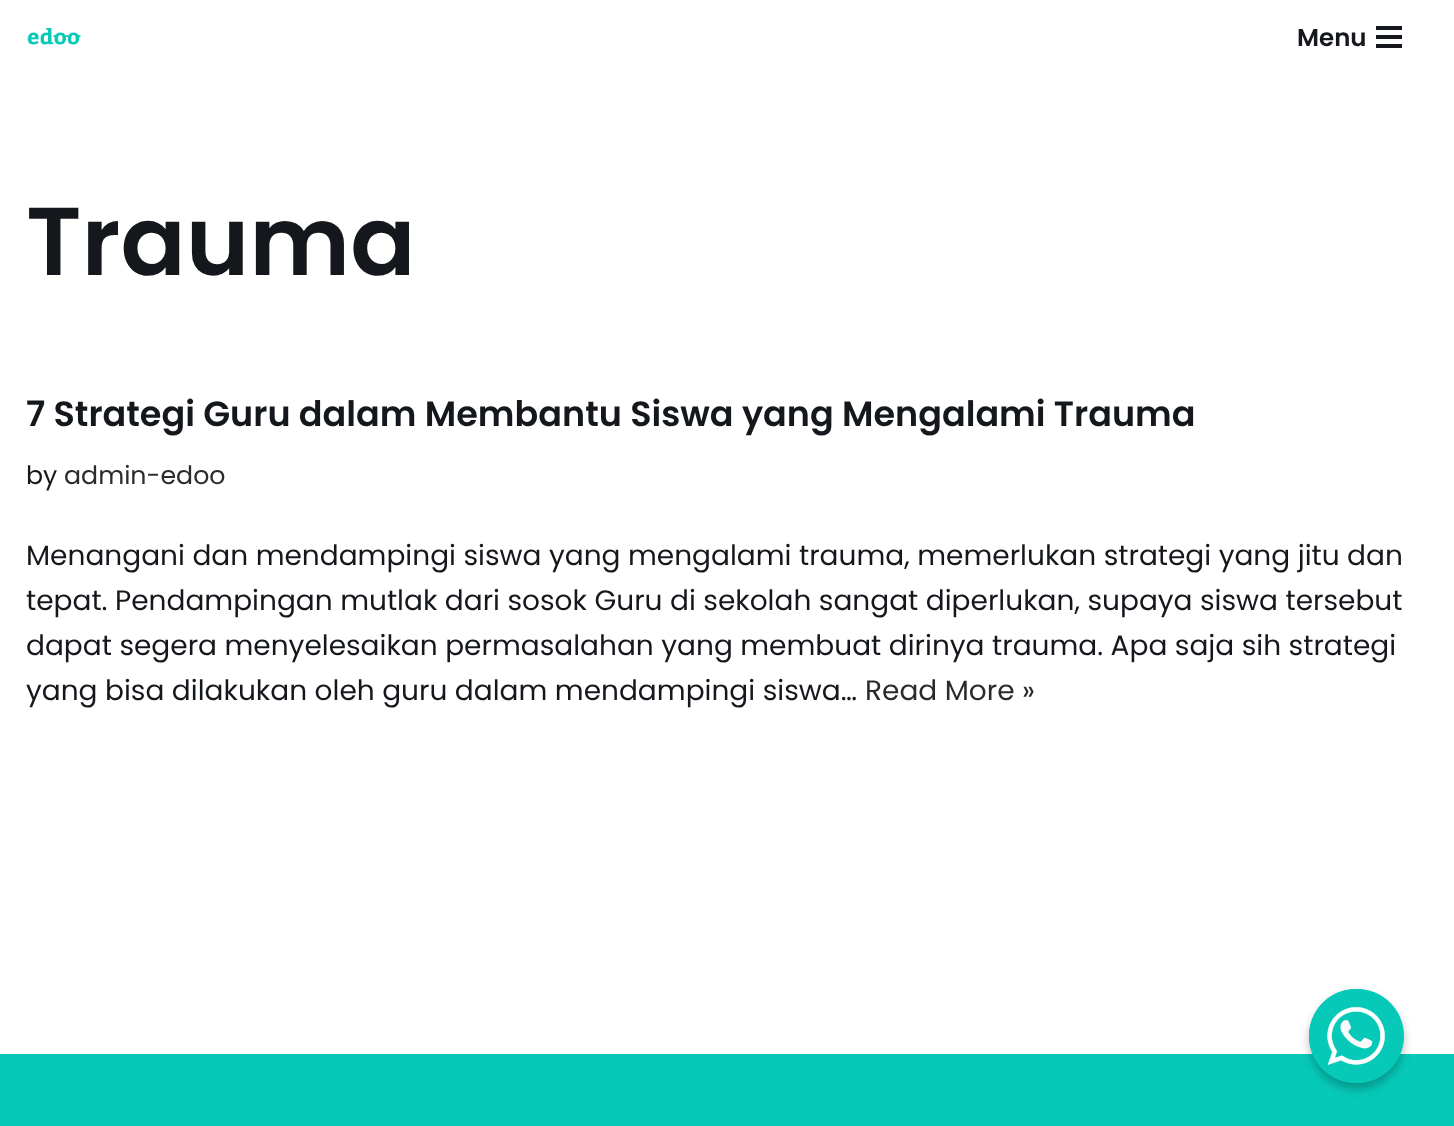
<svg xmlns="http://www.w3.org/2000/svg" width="1454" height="1126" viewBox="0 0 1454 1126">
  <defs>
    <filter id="blur1" x="-50%" y="-200%" width="200%" height="500%"><feGaussianBlur stdDeviation="5"/></filter>
  </defs>
  <rect width="100%" height="100%" fill="#ffffff"/>
  <image x="27" y="28" width="54" height="17" href="img1.png"/>
  <text x="1297" y="46" font-family="Poppins" font-size="24.5" font-weight="600" fill="#14171c">Menu</text>
  <rect x="1376" y="26" width="26" height="4" fill="#14171c"/>
  <rect x="1376" y="35" width="26" height="4" fill="#14171c"/>
  <rect x="1376" y="44" width="26" height="4" fill="#14171c"/>
  <text x="26" y="275" font-family="Poppins" font-size="96.25" font-weight="600" fill="#14171c">Trauma</text>
  <text x="26" y="426" font-family="Poppins" font-size="35" font-weight="600" fill="#14171c">7 Strategi Guru dalam Membantu Siswa yang Mengalami Trauma</text>
  <text x="26" y="484" font-family="Poppins" font-size="25.25" fill="#14171c">by</text>
  <text x="64" y="484" font-family="Poppins" font-size="25.25" fill="#2b2b2b">admin-edoo</text>
  <text x="26" y="565" font-family="Poppins" font-size="28" fill="#14171c">Menangani dan mendampingi siswa yang mengalami trauma, memerlukan strategi yang jitu dan</text>
  <text x="26" y="610" font-family="Poppins" font-size="28" fill="#14171c">tepat. Pendampingan mutlak dari sosok Guru di sekolah sangat diperlukan, supaya siswa tersebut</text>
  <text x="26" y="655" font-family="Poppins" font-size="28" fill="#14171c">dapat segera menyelesaikan permasalahan yang membuat dirinya trauma. Apa saja sih strategi</text>
  <text x="26" y="700" font-family="Poppins" font-size="28" fill="#14171c">yang bisa dilakukan oleh guru dalam mendampingi siswa…</text>
  <text x="865" y="700" font-family="Poppins" font-size="28" fill="#2b2b2b">Read More »</text>
  <rect x="0" y="1054" width="1454" height="72" fill="#06c9b8"/>
  <rect x="1309" y="994" width="95" height="95" rx="47.5" fill="#000000" fill-opacity="0.25" filter="url(#blur1)"/>
  <rect x="1309" y="989" width="95" height="94" rx="47" fill="#06c9b8"/>
  <image x="1309" y="989" width="81" height="94" href="img2.png"/>
</svg>
